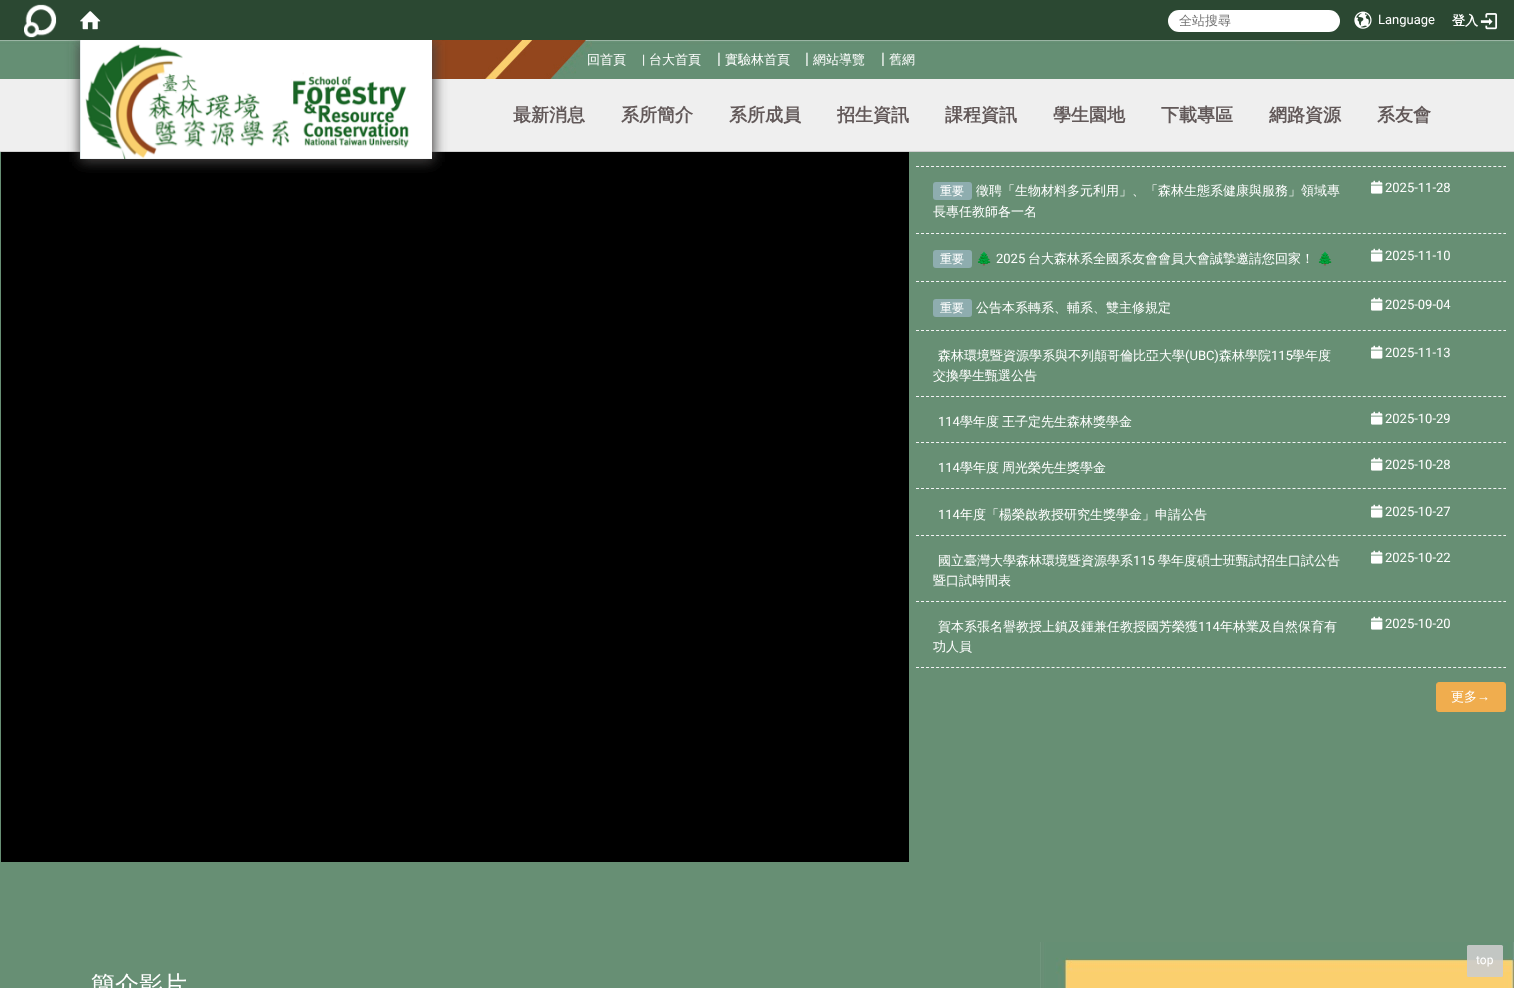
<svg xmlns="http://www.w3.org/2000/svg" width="1514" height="988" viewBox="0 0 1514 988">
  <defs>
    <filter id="blur1" x="-50%" y="-200%" width="200%" height="500%"><feGaussianBlur stdDeviation="6.5"/></filter>
  </defs>
  <rect width="100%" height="100%" fill="#678f74"/>
  <rect x="0" y="79" width="1514" height="72" fill="#efefef"/>
  <rect x="0" y="151" width="1514" height="1" fill="#d0d0d0"/>
  <image x="0" y="40" width="1514" height="39" href="img7.png"/>
  <rect x="1" y="152" width="908" height="710" fill="#000000"/>
  <rect x="80" y="41" width="354" height="121" fill="#444343" filter="url(#blur1)"/>
  <rect x="0" y="0" width="1514" height="40" fill="#2b4832"/>
  <image x="24" y="4" width="33" height="34" href="img1.png"/>
  <image x="80" y="11" width="21" height="19" href="img2.png"/>
  <rect x="1168" y="10" width="172" height="22" rx="11" fill="#ffffff"/>
  <text x="1179" y="25" font-family="WenQuanYi Zen Hei" font-size="13" font-weight="500" fill="#757575">全站搜尋</text>
  <image x="1354" y="11" width="18" height="18" href="img3.png"/>
  <text x="1378" y="24" font-family="Roboto" font-size="13" fill="#ffffff">Language</text>
  <text x="1452" y="25" font-family="WenQuanYi Zen Hei" font-size="13" font-weight="bold" fill="#ffffff">登入</text>
  <image x="1480" y="13" width="18" height="17" href="img4.png"/>
  <image x="80" y="40" width="352" height="119" href="img5.png"/>
  <image x="80" y="40" width="352" height="119" href="img6.png"/>
  <text x="587" y="64" font-family="WenQuanYi Zen Hei" font-size="13" font-weight="500" fill="#ffffff">回首頁</text>
  <text x="642" y="64" font-family="Roboto" font-size="13" fill="#ffffff">|</text>
  <text x="649" y="64" font-family="WenQuanYi Zen Hei" font-size="13" font-weight="500" fill="#ffffff">台大首頁</text>
  <text x="717" y="64" font-family="Roboto" font-size="16" fill="#ffffff">|</text>
  <text x="725" y="64" font-family="WenQuanYi Zen Hei" font-size="13" font-weight="500" fill="#ffffff">實驗林首頁</text>
  <text x="805" y="64" font-family="Roboto" font-size="16" fill="#ffffff">|</text>
  <text x="813" y="64" font-family="WenQuanYi Zen Hei" font-size="13" font-weight="500" fill="#ffffff">網站導覽</text>
  <text x="881" y="64" font-family="Roboto" font-size="16" fill="#ffffff">|</text>
  <text x="889" y="64" font-family="WenQuanYi Zen Hei" font-size="13" font-weight="500" fill="#ffffff">舊網</text>
  <text x="513" y="121" font-family="WenQuanYi Zen Hei" font-size="18" font-weight="bold" fill="#625959">最新消息</text>
  <text x="621" y="121" font-family="WenQuanYi Zen Hei" font-size="18" font-weight="bold" fill="#625959">系所簡介</text>
  <text x="729" y="121" font-family="WenQuanYi Zen Hei" font-size="18" font-weight="bold" fill="#625959">系所成員</text>
  <text x="837" y="121" font-family="WenQuanYi Zen Hei" font-size="18" font-weight="bold" fill="#625959">招生資訊</text>
  <text x="945" y="121" font-family="WenQuanYi Zen Hei" font-size="18" font-weight="bold" fill="#625959">課程資訊</text>
  <text x="1053" y="121" font-family="WenQuanYi Zen Hei" font-size="18" font-weight="bold" fill="#625959">學生園地</text>
  <text x="1161" y="121" font-family="WenQuanYi Zen Hei" font-size="18" font-weight="bold" fill="#625959">下載專區</text>
  <text x="1269" y="121" font-family="WenQuanYi Zen Hei" font-size="18" font-weight="bold" fill="#625959">網路資源</text>
  <text x="1377" y="121" font-family="WenQuanYi Zen Hei" font-size="18" font-weight="bold" fill="#625959">系友會</text>
  <path d="M916 166.5H1506" fill="none" stroke="#f3f4f5" stroke-dasharray="3 2.02"/>
  <path d="M916 233.5H1506" fill="none" stroke="#f3f4f5" stroke-dasharray="3 2.02"/>
  <rect x="933" y="182" width="39" height="18" rx="3" fill="#8eadaf"/>
  <text x="940" y="195" font-family="WenQuanYi Zen Hei" font-size="12" font-weight="500" fill="#ffffff">重要</text>
  <text x="976" y="195" font-family="WenQuanYi Zen Hei" font-size="13" font-weight="500" fill="#ffffff">徵聘「生物材料多元利用」、「森林生態系健康與服務」領域專</text>
  <text x="933" y="216" font-family="WenQuanYi Zen Hei" font-size="13" font-weight="500" fill="#ffffff">長專任教師各一名</text>
  <image x="1371" y="180" width="12" height="14" href="img8.png"/>
  <text x="1385" y="192" font-family="Roboto" font-size="13" fill="#ffffff">2025-11-28</text>
  <path d="M916 281.5H1506" fill="none" stroke="#f3f4f5" stroke-dasharray="3 2.02"/>
  <rect x="933" y="250" width="39" height="18" rx="3" fill="#8eadaf"/>
  <text x="940" y="263" font-family="WenQuanYi Zen Hei" font-size="12" font-weight="500" fill="#ffffff">重要</text>
  <text x="976" y="263" font-family="Noto Color Emoji" font-size="13" fill="#ffffff">🌲</text>
  <text x="996" y="263" font-family="Roboto" font-size="13" fill="#ffffff">2025</text>
  <text x="1028" y="263" font-family="WenQuanYi Zen Hei" font-size="13" font-weight="500" fill="#ffffff">台大森林系全國系友會會員大會誠摯邀請您回家！</text>
  <text x="1317" y="263" font-family="Noto Color Emoji" font-size="13" fill="#ffffff">🌲</text>
  <image x="1371" y="248" width="12" height="14" href="img8.png"/>
  <text x="1385" y="260" font-family="Roboto" font-size="13" fill="#ffffff">2025-11-10</text>
  <path d="M916 330.5H1506" fill="none" stroke="#f3f4f5" stroke-dasharray="3 2.02"/>
  <rect x="933" y="299" width="39" height="18" rx="3" fill="#8eadaf"/>
  <text x="940" y="312" font-family="WenQuanYi Zen Hei" font-size="12" font-weight="500" fill="#ffffff">重要</text>
  <text x="976" y="312" font-family="WenQuanYi Zen Hei" font-size="13" font-weight="500" fill="#ffffff">公告本系轉系、輔系、雙主修規定</text>
  <image x="1371" y="297" width="12" height="14" href="img8.png"/>
  <text x="1385" y="309" font-family="Roboto" font-size="13" fill="#ffffff">2025-09-04</text>
  <path d="M916 396.5H1506" fill="none" stroke="#f3f4f5" stroke-dasharray="3 2.02"/>
  <text x="938" y="360" font-family="WenQuanYi Zen Hei" font-size="13" font-weight="500" fill="#ffffff">森林環境暨資源學系與不列顛哥倫比亞大學</text>
  <text x="1185" y="360" font-family="Roboto" font-size="13" fill="#ffffff">(UBC)</text>
  <text x="1219" y="360" font-family="WenQuanYi Zen Hei" font-size="13" font-weight="500" fill="#ffffff">森林學院</text>
  <text x="1271" y="360" font-family="Roboto" font-size="13" fill="#ffffff">115</text>
  <text x="1292" y="360" font-family="WenQuanYi Zen Hei" font-size="13" font-weight="500" fill="#ffffff">學年度</text>
  <text x="933" y="380" font-family="WenQuanYi Zen Hei" font-size="13" font-weight="500" fill="#ffffff">交換學生甄選公告</text>
  <image x="1371" y="345" width="12" height="14" href="img8.png"/>
  <text x="1385" y="357" font-family="Roboto" font-size="13" fill="#ffffff">2025-11-13</text>
  <path d="M916 442.5H1506" fill="none" stroke="#f3f4f5" stroke-dasharray="3 2.02"/>
  <text x="938" y="426" font-family="Roboto" font-size="13" fill="#ffffff">114</text>
  <text x="960" y="426" word-spacing="-1" font-family="WenQuanYi Zen Hei" font-size="13" font-weight="500" fill="#ffffff">學年度 王子定先生森林獎學金</text>
  <image x="1371" y="411" width="12" height="14" href="img8.png"/>
  <text x="1385" y="423" font-family="Roboto" font-size="13" fill="#ffffff">2025-10-29</text>
  <path d="M916 488.5H1506" fill="none" stroke="#f3f4f5" stroke-dasharray="3 2.02"/>
  <text x="938" y="472" font-family="Roboto" font-size="13" fill="#ffffff">114</text>
  <text x="960" y="472" word-spacing="-1" font-family="WenQuanYi Zen Hei" font-size="13" font-weight="500" fill="#ffffff">學年度 周光榮先生獎學金</text>
  <image x="1371" y="457" width="12" height="14" href="img8.png"/>
  <text x="1385" y="469" font-family="Roboto" font-size="13" fill="#ffffff">2025-10-28</text>
  <path d="M916 535.5H1506" fill="none" stroke="#f3f4f5" stroke-dasharray="3 2.02"/>
  <text x="938" y="519" font-family="Roboto" font-size="13" fill="#ffffff">114</text>
  <text x="960" y="519" font-family="WenQuanYi Zen Hei" font-size="13" font-weight="500" fill="#ffffff">年度「楊榮啟教授研究生獎學金」申請公告</text>
  <image x="1371" y="504" width="12" height="14" href="img8.png"/>
  <text x="1385" y="516" font-family="Roboto" font-size="13" fill="#ffffff">2025-10-27</text>
  <path d="M916 601.5H1506" fill="none" stroke="#f3f4f5" stroke-dasharray="3 2.02"/>
  <text x="938" y="565" font-family="WenQuanYi Zen Hei" font-size="13" font-weight="500" fill="#ffffff">國立臺灣大學森林環境暨資源學系</text>
  <text x="1133" y="565" font-family="Roboto" font-size="13" fill="#ffffff">115</text>
  <text x="1158" y="565" font-family="WenQuanYi Zen Hei" font-size="13" font-weight="500" fill="#ffffff">學年度碩士班甄試招生口試公告</text>
  <text x="933" y="585" font-family="WenQuanYi Zen Hei" font-size="13" font-weight="500" fill="#ffffff">暨口試時間表</text>
  <image x="1371" y="550" width="12" height="14" href="img8.png"/>
  <text x="1385" y="562" font-family="Roboto" font-size="13" fill="#ffffff">2025-10-22</text>
  <path d="M916 667.5H1506" fill="none" stroke="#f3f4f5" stroke-dasharray="3 2.02"/>
  <text x="938" y="631" font-family="WenQuanYi Zen Hei" font-size="13" font-weight="500" fill="#ffffff">賀本系張名譽教授上鎮及鍾兼任教授國芳榮獲</text>
  <text x="1198" y="631" font-family="Roboto" font-size="13" fill="#ffffff">114</text>
  <text x="1220" y="631" font-family="WenQuanYi Zen Hei" font-size="13" font-weight="500" fill="#ffffff">年林業及自然保育有</text>
  <text x="933" y="651" font-family="WenQuanYi Zen Hei" font-size="13" font-weight="500" fill="#ffffff">功人員</text>
  <image x="1371" y="616" width="12" height="14" href="img8.png"/>
  <text x="1385" y="628" font-family="Roboto" font-size="13" fill="#ffffff">2025-10-20</text>
  <rect x="1436.5" y="682.5" width="69" height="29" rx="2.5" fill="#f0ad4e" stroke="#f0ad4e"/>
  <text x="1451" y="701" font-family="WenQuanYi Zen Hei" font-size="13" font-weight="500" fill="#ffffff">更多</text>
  <text x="1477" y="701" font-family="Liberation Sans" font-size="13" fill="#ffffff">→</text>
  <image x="1040" y="942" width="474" height="46" href="img9.png"/>
  <rect x="1467" y="945" width="36" height="32" rx="1.5" fill="#cccccc" fill-opacity="0.9"/>
  <text x="1476" y="964" font-family="Roboto" font-size="12" fill="#ffffff">top</text>
  <text x="91" y="993" font-family="WenQuanYi Zen Hei" font-size="24" font-weight="500" fill="#ffffff">簡介影片</text>
</svg>
